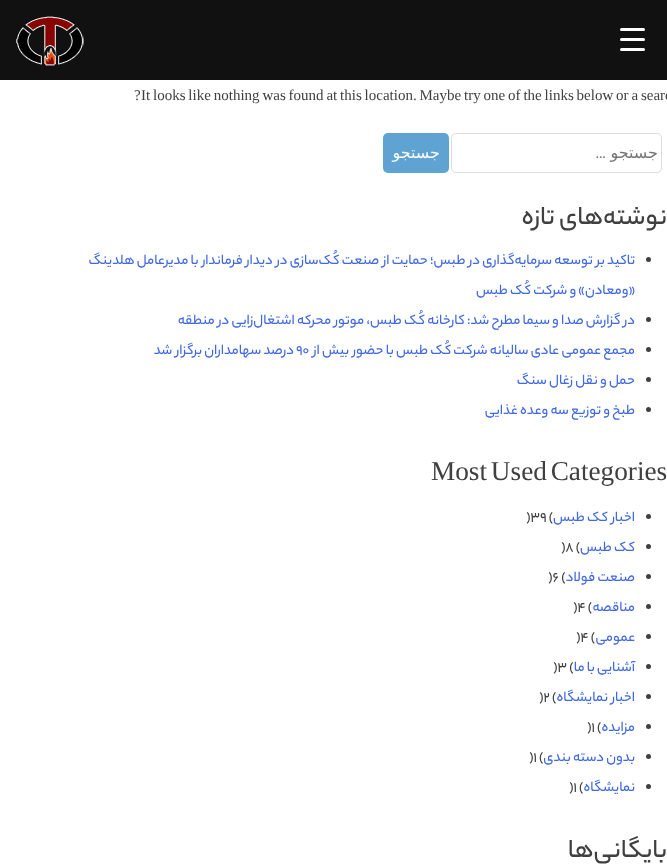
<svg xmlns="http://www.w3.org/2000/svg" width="667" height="865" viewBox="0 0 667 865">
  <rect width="100%" height="100%" fill="#ffffff"/>
  <rect x="0" y="0" width="667" height="80" fill="#111111"/>
  <rect x="620" y="38" width="25" height="3" rx="1.5" fill="#ffffff"/>
  <rect x="620" y="28" width="25" height="3" rx="1.5" fill="#ffffff"/>
  <rect x="620" y="48" width="25" height="3" rx="1.5" fill="#ffffff"/>
  <image x="16" y="16" width="68" height="50" href="img1.png"/>
  <text x="141" y="100" word-spacing="-0.9" font-family="Liberation Serif" font-size="15" fill="#404040">It looks like nothing was found at this location. Maybe try one of the links below or a searc</text>
  <text x="134" y="100" font-family="Liberation Serif" font-size="15" fill="#404040">?</text>
  <rect x="451.5" y="133.5" width="210" height="39" rx="4.5" fill="none" stroke="#dddddd"/>
  <text x="658" y="158" font-family="DejaVu Sans" font-size="16" direction="rtl" fill="#757575">جستجو</text>
  <text x="606" y="158" font-family="Roboto" font-size="16" direction="rtl" fill="#757575">…</text>
  <rect x="383" y="133" width="66" height="40" rx="5" fill="#5ea3d1"/>
  <text x="440" y="158" font-family="DejaVu Sans" font-size="16" direction="rtl" fill="#ffffff">جستجو</text>
  <text x="667" y="224" font-family="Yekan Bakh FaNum" font-size="27.25" font-weight="500" direction="rtl" fill="#404040">نوشته‌های تازه</text>
  <circle cx="648.5" cy="259.5" r="2.5" fill="#404040"/>
  <text x="635" y="264" font-family="Yekan Bakh FaNum" font-size="15" font-weight="500" direction="rtl" fill="#4169e1">تاکید بر توسعه سرمایه‌گذاری در طبس؛ حمایت از صنعت کُک‌سازی در دیدار فرماندار با مدیرعامل هلدینگ</text>
  <text x="635" y="294" font-family="Yekan Bakh FaNum" font-size="15" font-weight="500" direction="rtl" fill="#4169e1">«ومعادن» و شرکت کُک طبس</text>
  <circle cx="648.5" cy="319.5" r="2.5" fill="#404040"/>
  <text x="635" y="324" font-family="Yekan Bakh FaNum" font-size="15" font-weight="500" direction="rtl" fill="#4169e1">در گزارش صدا و سیما مطرح شد: کارخانه کُک طبس، موتور محرکه اشتغال‌زایی در منطقه</text>
  <circle cx="648.5" cy="349.5" r="2.5" fill="#404040"/>
  <text x="635" y="354" font-family="Yekan Bakh FaNum" font-size="15" font-weight="500" direction="rtl" fill="#4169e1">مجمع عمومی عادی سالیانه شرکت کُک طبس با حضور بیش از</text>
  <text x="296" y="354" font-family="Yekan Bakh FaNum" font-size="15" font-weight="500" fill="#4169e1">۹۰</text>
  <text x="294" y="354" font-family="Yekan Bakh FaNum" font-size="15" font-weight="500" direction="rtl" fill="#4169e1">درصد سهامداران برگزار شد</text>
  <circle cx="648.5" cy="379.5" r="2.5" fill="#404040"/>
  <text x="635" y="384" font-family="Yekan Bakh FaNum" font-size="15" font-weight="500" direction="rtl" fill="#4169e1">حمل و نقل زغال سنگ</text>
  <circle cx="648.5" cy="409.5" r="2.5" fill="#404040"/>
  <text x="635" y="414" font-family="Yekan Bakh FaNum" font-size="15" font-weight="500" direction="rtl" fill="#4169e1">طبخ و توزیع سه وعده غذایی</text>
  <text x="431" y="480" word-spacing="-3" font-family="Liberation Serif" font-size="27.25" fill="#404040">Most Used Categories</text>
  <circle cx="648.5" cy="516.5" r="2.5" fill="#404040"/>
  <text x="635" y="521" font-family="Yekan Bakh FaNum" font-size="15" font-weight="500" direction="rtl" fill="#4169e1">اخبار کک طبس</text>
  <text x="526" y="521" font-family="Yekan Bakh FaNum" font-size="15" font-weight="500" fill="#404040">)39 (</text>
  <circle cx="648.5" cy="546.5" r="2.5" fill="#404040"/>
  <text x="635" y="551" font-family="Yekan Bakh FaNum" font-size="15" font-weight="500" direction="rtl" fill="#4169e1">کک طبس</text>
  <text x="561" y="551" font-family="Yekan Bakh FaNum" font-size="15" font-weight="500" fill="#404040">)8 (</text>
  <circle cx="648.5" cy="576.5" r="2.5" fill="#404040"/>
  <text x="635" y="581" font-family="Yekan Bakh FaNum" font-size="15" font-weight="500" direction="rtl" fill="#4169e1">صنعت فولاد</text>
  <text x="548" y="581" font-family="Yekan Bakh FaNum" font-size="15" font-weight="500" fill="#404040">)6 (</text>
  <circle cx="648.5" cy="606.5" r="2.5" fill="#404040"/>
  <text x="635" y="611" font-family="Yekan Bakh FaNum" font-size="15" font-weight="500" direction="rtl" fill="#4169e1">مناقصه</text>
  <text x="573" y="611" font-family="Yekan Bakh FaNum" font-size="15" font-weight="500" fill="#404040">)4 (</text>
  <circle cx="648.5" cy="636.5" r="2.5" fill="#404040"/>
  <text x="635" y="641" font-family="Yekan Bakh FaNum" font-size="15" font-weight="500" direction="rtl" fill="#4169e1">عمومی</text>
  <text x="576" y="641" font-family="Yekan Bakh FaNum" font-size="15" font-weight="500" fill="#404040">)4 (</text>
  <circle cx="648.5" cy="666.5" r="2.5" fill="#404040"/>
  <text x="635" y="671" font-family="Yekan Bakh FaNum" font-size="15" font-weight="500" direction="rtl" fill="#4169e1">آشنایی با ما</text>
  <text x="553" y="671" font-family="Yekan Bakh FaNum" font-size="15" font-weight="500" fill="#404040">)3 (</text>
  <circle cx="648.5" cy="696.5" r="2.5" fill="#404040"/>
  <text x="635" y="701" font-family="Yekan Bakh FaNum" font-size="15" font-weight="500" direction="rtl" fill="#4169e1">اخبار نمایشگاه</text>
  <text x="539" y="701" font-family="Yekan Bakh FaNum" font-size="15" font-weight="500" fill="#404040">)2 (</text>
  <circle cx="648.5" cy="726.5" r="2.5" fill="#404040"/>
  <text x="635" y="731" font-family="Yekan Bakh FaNum" font-size="15" font-weight="500" direction="rtl" fill="#4169e1">مزایده</text>
  <text x="587" y="731" font-family="Yekan Bakh FaNum" font-size="15" font-weight="500" fill="#404040">)1 (</text>
  <circle cx="648.5" cy="756.5" r="2.5" fill="#404040"/>
  <text x="635" y="761" font-family="Yekan Bakh FaNum" font-size="15" font-weight="500" direction="rtl" fill="#4169e1">بدون دسته بندی</text>
  <text x="529" y="761" font-family="Yekan Bakh FaNum" font-size="15" font-weight="500" fill="#404040">)1 (</text>
  <circle cx="648.5" cy="786.5" r="2.5" fill="#404040"/>
  <text x="635" y="791" font-family="Yekan Bakh FaNum" font-size="15" font-weight="500" direction="rtl" fill="#4169e1">نمایشگاه</text>
  <text x="569" y="791" font-family="Yekan Bakh FaNum" font-size="15" font-weight="500" fill="#404040">)1 (</text>
  <text x="667" y="857" font-family="Yekan Bakh FaNum" font-size="27.25" font-weight="500" direction="rtl" fill="#404040">بایگانی‌ها</text>
</svg>
